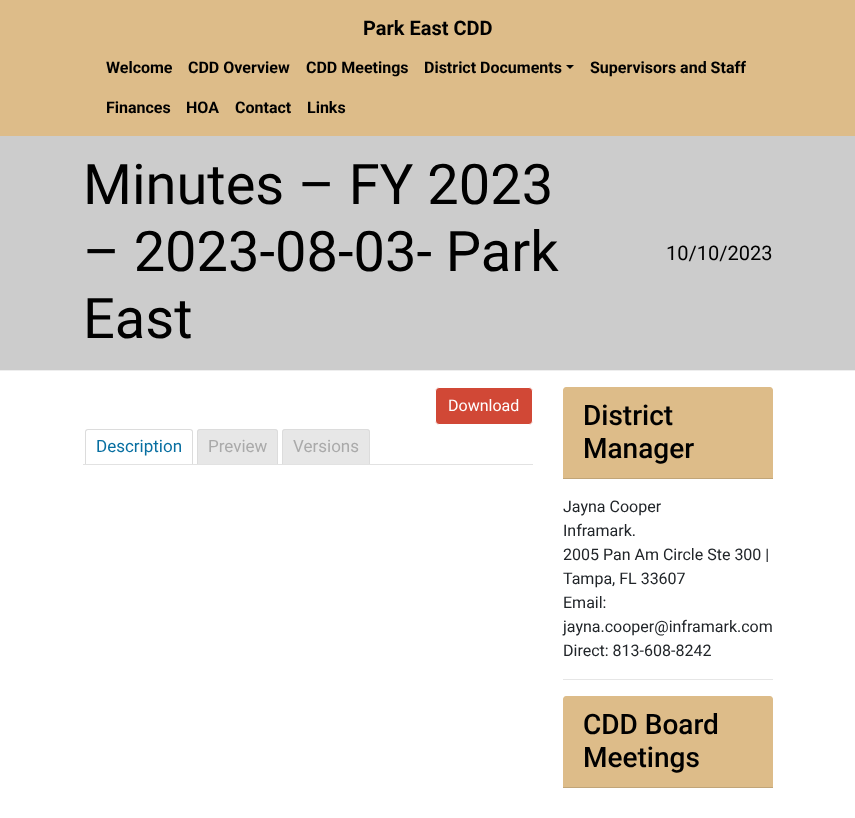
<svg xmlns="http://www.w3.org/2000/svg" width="855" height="818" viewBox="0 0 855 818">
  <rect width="100%" height="100%" fill="#ffffff"/>
  <rect x="0" y="0" width="855" height="136" fill="#ddbc89"/>
  <text x="363" y="35" font-family="Roboto" font-size="20" font-weight="bold" fill="#000000">Park East CDD</text>
  <text x="106" y="73" font-family="Roboto" font-size="16" font-weight="bold" fill="#000000">Welcome</text>
  <text x="188" y="73" font-family="Roboto" font-size="16" font-weight="bold" fill="#000000">CDD Overview</text>
  <text x="306" y="73" font-family="Roboto" font-size="16" font-weight="bold" fill="#000000">CDD Meetings</text>
  <text x="424" y="73" font-family="Roboto" font-size="16" font-weight="bold" fill="#000000">District Documents</text>
  <path d="M566 65H574L570 69Z" fill="#000000"/>
  <text x="590" y="73" font-family="Roboto" font-size="16" font-weight="bold" fill="#000000">Supervisors and Staff</text>
  <text x="106" y="113" font-family="Roboto" font-size="16" font-weight="bold" fill="#000000">Finances</text>
  <text x="186" y="113" font-family="Roboto" font-size="16" font-weight="bold" fill="#000000">HOA</text>
  <text x="235" y="113" font-family="Roboto" font-size="16" font-weight="bold" fill="#000000">Contact</text>
  <text x="307" y="113" font-family="Roboto" font-size="16" font-weight="bold" fill="#000000">Links</text>
  <rect x="0" y="136" width="855" height="234" fill="#cccccc"/>
  <rect x="0" y="370" width="855" height="1" fill="#eeeeee"/>
  <text x="83" y="204" font-family="Roboto" font-size="56" fill="#000000">Minutes – FY 2023</text>
  <text x="83" y="271" font-family="Roboto" font-size="56" fill="#000000">– 2023-08-03- Park</text>
  <text x="83" y="338" font-family="Roboto" font-size="56" fill="#000000">East</text>
  <text x="666" y="260" font-family="Roboto" font-size="20" fill="#000000">10/10/2023</text>
  <rect x="435.5" y="387.5" width="97" height="37" rx="3.5" fill="#d14836" stroke="#ffffff"/>
  <text x="448" y="411" font-family="Roboto" font-size="16" fill="#ffffff">Download</text>
  <path d="M88 429H190C192 429 193 430 193 432V464H85V432C85 430 86 429 88 429ZM88 430H190C191 430 192 431 192 432V464H86V432C86 431 87 430 88 430Z" fill="#dcdcdc" fill-rule="evenodd"/>
  <text x="96" y="452" font-family="Roboto" font-size="17" fill="#086fa1">Description</text>
  <path d="M200 429H275C276.5 429 278 430.5 278 432V464H197V432C197 430.5 198.5 429 200 429Z" fill="#e7e7e7"/>
  <path d="M200 429H275C277 429 278 430 278 432V464H197V432C197 430 198 429 200 429ZM200 430H275C276 430 277 431 277 432V464H198V432C198 431 199 430 200 430Z" fill="#dcdcdc" fill-rule="evenodd"/>
  <text x="208" y="452" font-family="Roboto" font-size="17" fill="#aaaaaa">Preview</text>
  <path d="M285 429H367C368.5 429 370 430.5 370 432V464H282V432C282 430.5 283.5 429 285 429Z" fill="#e7e7e7"/>
  <path d="M285 429H367C369 429 370 430 370 432V464H282V432C282 430 283 429 285 429ZM285 430H367C368 430 369 431 369 432V464H283V432C283 431 284 430 285 430Z" fill="#dcdcdc" fill-rule="evenodd"/>
  <text x="293" y="452" font-family="Roboto" font-size="17" fill="#aaaaaa">Versions</text>
  <rect x="83" y="464" width="450" height="1" fill="#e2e2e2"/>
  <path d="M566 387H770C771.5 387 773 388.5 773 390V479H563V390C563 388.5 564.5 387 566 387Z" fill="#ddbc89"/>
  <rect x="563" y="478" width="210" height="1" fill="#c1a578"/>
  <text x="583" y="425" font-family="Roboto" font-size="28" font-weight="500" fill="#000000">District</text>
  <text x="583" y="458" font-family="Roboto" font-size="28" font-weight="500" fill="#000000">Manager</text>
  <text x="563" y="512" font-family="Roboto" font-size="16" fill="#212529">Jayna Cooper</text>
  <text x="563" y="536" font-family="Roboto" font-size="16" fill="#212529">Inframark.</text>
  <text x="563" y="560" font-family="Roboto" font-size="16" fill="#212529">2005 Pan Am Circle Ste 300 |</text>
  <text x="563" y="584" font-family="Roboto" font-size="16" fill="#212529">Tampa, FL 33607</text>
  <text x="563" y="608" font-family="Roboto" font-size="16" fill="#212529">Email:</text>
  <text x="563" y="632" font-family="Roboto" font-size="16" fill="#212529">jayna.cooper@inframark.com</text>
  <text x="563" y="656" font-family="Roboto" font-size="16" fill="#212529">Direct: 813-608-8242</text>
  <rect x="563" y="679" width="210" height="1" fill="#e6e6e6"/>
  <path d="M566 696H770C771.5 696 773 697.5 773 699V788H563V699C563 697.5 564.5 696 566 696Z" fill="#ddbc89"/>
  <rect x="563" y="787" width="210" height="1" fill="#c1a578"/>
  <text x="583" y="734" font-family="Roboto" font-size="28" font-weight="500" fill="#000000">CDD Board</text>
  <text x="583" y="767" font-family="Roboto" font-size="28" font-weight="500" fill="#000000">Meetings</text>
</svg>
